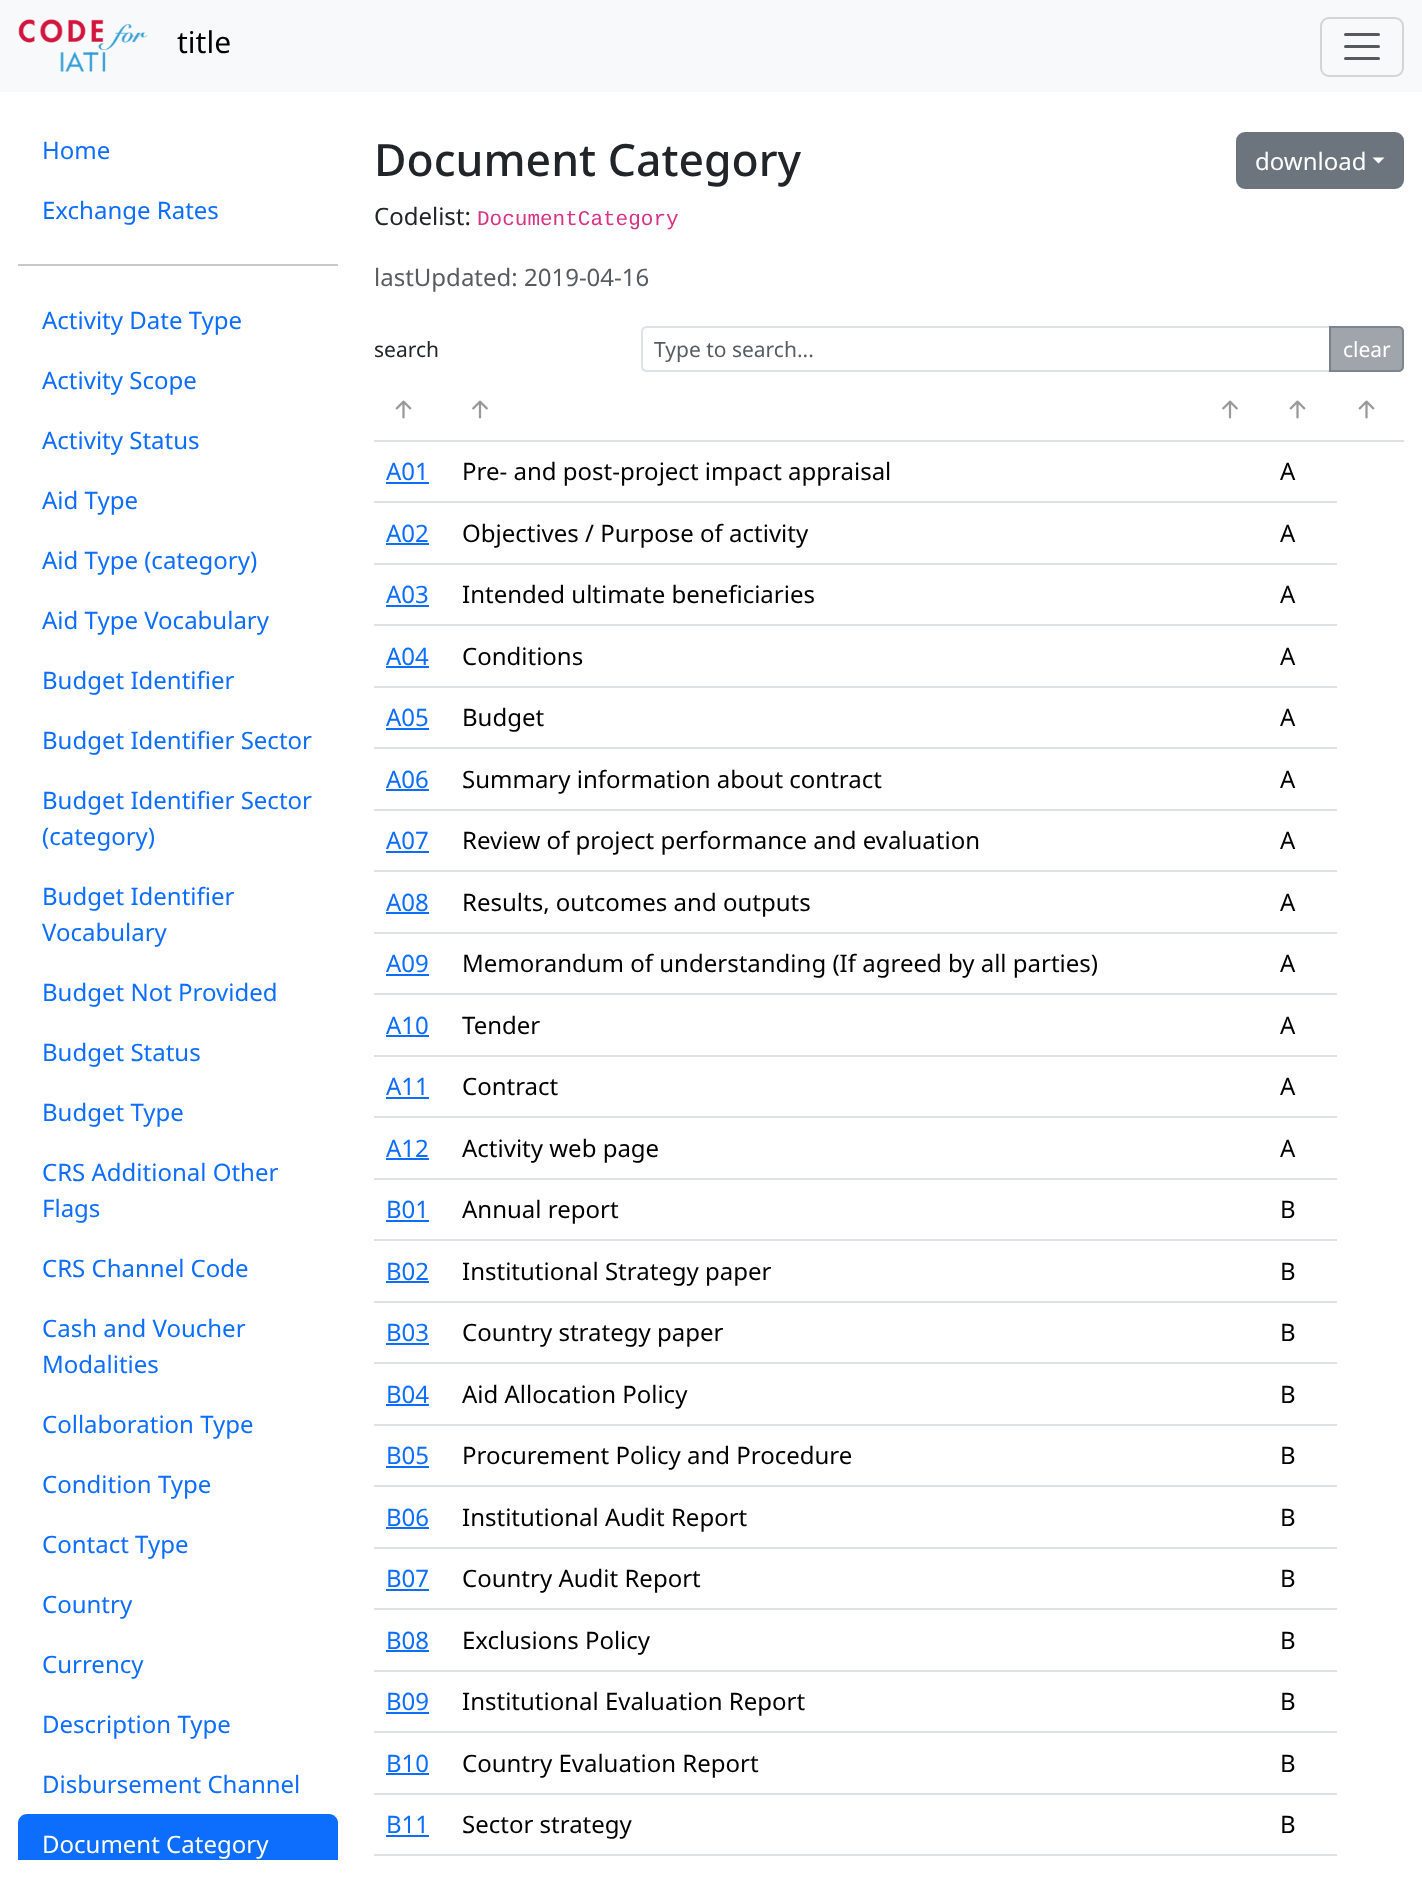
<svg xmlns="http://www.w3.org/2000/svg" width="1422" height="1884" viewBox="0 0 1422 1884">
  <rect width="100%" height="100%" fill="#ffffff"/>
  <rect x="0" y="0" width="1422" height="92" fill="#f8f9fa"/>
  <image x="18" y="19" width="130" height="53" href="img1.png"/>
  <text x="177" y="53" font-family="Noto Sans" font-size="30" fill="#000000">title</text>
  <rect x="1321" y="18" width="82" height="58" rx="8" fill="none" stroke="#d3d4d5" stroke-width="2"/>
  <path d="M1345.5 34.5H1378.5M1345.5 46.5H1378.5M1345.5 58.5H1378.5" fill="none" stroke="#575a5d" stroke-width="3" stroke-linecap="round"/>
  <text x="42" y="159" font-family="Noto Sans" font-size="24" fill="#0d6efd">Home</text>
  <text x="42" y="219" font-family="Noto Sans" font-size="24" fill="#0d6efd">Exchange Rates</text>
  <rect x="18" y="264" width="320" height="2" fill="#c8c9ca"/>
  <text x="42" y="329" font-family="Noto Sans" font-size="24" fill="#0d6efd">Activity Date Type</text>
  <text x="42" y="389" font-family="Noto Sans" font-size="24" fill="#0d6efd">Activity Scope</text>
  <text x="42" y="449" font-family="Noto Sans" font-size="24" fill="#0d6efd">Activity Status</text>
  <text x="42" y="509" font-family="Noto Sans" font-size="24" fill="#0d6efd">Aid Type</text>
  <text x="42" y="569" font-family="Noto Sans" font-size="24" fill="#0d6efd">Aid Type (category)</text>
  <text x="42" y="629" font-family="Noto Sans" font-size="24" fill="#0d6efd">Aid Type Vocabulary</text>
  <text x="42" y="689" font-family="Noto Sans" font-size="24" fill="#0d6efd">Budget Identifier</text>
  <text x="42" y="749" font-family="Noto Sans" font-size="24" fill="#0d6efd">Budget Identifier Sector</text>
  <text x="42" y="809" font-family="Noto Sans" font-size="24" fill="#0d6efd">Budget Identifier Sector</text>
  <text x="42" y="845" font-family="Noto Sans" font-size="24" fill="#0d6efd">(category)</text>
  <text x="42" y="905" font-family="Noto Sans" font-size="24" fill="#0d6efd">Budget Identifier</text>
  <text x="42" y="941" font-family="Noto Sans" font-size="24" fill="#0d6efd">Vocabulary</text>
  <text x="42" y="1001" font-family="Noto Sans" font-size="24" fill="#0d6efd">Budget Not Provided</text>
  <text x="42" y="1061" font-family="Noto Sans" font-size="24" fill="#0d6efd">Budget Status</text>
  <text x="42" y="1121" font-family="Noto Sans" font-size="24" fill="#0d6efd">Budget Type</text>
  <text x="42" y="1181" font-family="Noto Sans" font-size="24" fill="#0d6efd">CRS Additional Other</text>
  <text x="42" y="1217" font-family="Noto Sans" font-size="24" fill="#0d6efd">Flags</text>
  <text x="42" y="1277" font-family="Noto Sans" font-size="24" fill="#0d6efd">CRS Channel Code</text>
  <text x="42" y="1337" font-family="Noto Sans" font-size="24" fill="#0d6efd">Cash and Voucher</text>
  <text x="42" y="1373" font-family="Noto Sans" font-size="24" fill="#0d6efd">Modalities</text>
  <text x="42" y="1433" font-family="Noto Sans" font-size="24" fill="#0d6efd">Collaboration Type</text>
  <text x="42" y="1493" font-family="Noto Sans" font-size="24" fill="#0d6efd">Condition Type</text>
  <text x="42" y="1553" font-family="Noto Sans" font-size="24" fill="#0d6efd">Contact Type</text>
  <text x="42" y="1613" font-family="Noto Sans" font-size="24" fill="#0d6efd">Country</text>
  <text x="42" y="1673" font-family="Noto Sans" font-size="24" fill="#0d6efd">Currency</text>
  <text x="42" y="1733" font-family="Noto Sans" font-size="24" fill="#0d6efd">Description Type</text>
  <text x="42" y="1793" font-family="Noto Sans" font-size="24" fill="#0d6efd">Disbursement Channel</text>
  <path d="M27 1814H329C334 1814 338 1818 338 1823V1860H18V1823C18 1818 22 1814 27 1814Z" fill="#0d6efd"/>
  <text x="42" y="1853" font-family="Noto Sans" font-size="24" fill="#ffffff">Document Category</text>
  <text x="374" y="176" font-family="Noto Sans" font-size="44.5" font-weight="500" fill="#212529">Document Category</text>
  <text x="374" y="225" font-family="Noto Sans" font-size="24" fill="#212529">Codelist:</text>
  <text x="477" y="225" font-family="Liberation Mono" font-size="21" fill="#d63384">DocumentCategory</text>
  <text x="374" y="286" font-family="Noto Sans" font-size="24" fill="#595c5f">lastUpdated: 2019-04-16</text>
  <rect x="1237" y="133" width="166" height="55" rx="8" fill="#6c757d" stroke="#6c757d" stroke-width="2"/>
  <text x="1255" y="170" font-family="Noto Sans" font-size="24" fill="#ffffff">download</text>
  <path d="M1372.5 157.5H1384.5L1378.5 163.5Z" fill="#ffffff"/>
  <text x="374" y="357" font-family="Noto Sans" font-size="21" fill="#212529">search</text>
  <path d="M647 327H1330V371H647C644 371 642 369 642 366V332C642 329 644 327 647 327Z" fill="none" stroke="#dee2e6" stroke-width="2"/>
  <text x="654" y="357" font-family="Noto Sans" font-size="21" fill="#595c5f">Type to search...</text>
  <path d="M1329 326H1398C1401.5 326 1404 328.5 1404 332V366C1404 369.5 1401.5 372 1398 372H1329Z" fill="#6c757d" fill-opacity="0.65"/>
  <path d="M1330 327H1398C1401 327 1403 329 1403 332V366C1403 369 1401 371 1398 371H1330Z" fill="none" stroke="#6c757d" stroke-opacity="0.65" stroke-width="2"/>
  <text x="1343" y="357" font-family="Noto Sans" font-size="21" fill="#ffffff">clear</text>
  <rect x="374" y="440" width="1030" height="2" fill="#dee2e6"/>
  <image x="1358" y="400" width="17" height="19" href="img2.png"/>
  <image x="395" y="400" width="17" height="19" href="img2.png"/>
  <image x="472" y="400" width="16" height="19" href="img3.png"/>
  <image x="1222" y="400" width="16" height="19" href="img3.png"/>
  <image x="1289" y="400" width="17" height="19" href="img2.png"/>
  <text x="386" y="480" font-family="Noto Sans" font-size="24" fill="#0d6efd">A01</text>
  <rect x="386" y="482" width="43" height="2" fill="#0d6efd"/>
  <text x="462" y="480" font-family="Noto Sans" font-size="24" fill="#000000">Pre- and post-project impact appraisal</text>
  <rect x="374" y="501" width="963" height="2" fill="#dee2e6"/>
  <text x="1280" y="480" font-family="Noto Sans" font-size="24" fill="#000000">A</text>
  <text x="386" y="542" font-family="Noto Sans" font-size="24" fill="#0d6efd">A02</text>
  <rect x="386" y="543" width="43" height="2" fill="#0d6efd"/>
  <text x="462" y="542" font-family="Noto Sans" font-size="24" fill="#000000">Objectives / Purpose of activity</text>
  <rect x="374" y="563" width="963" height="2" fill="#dee2e6"/>
  <text x="1280" y="542" font-family="Noto Sans" font-size="24" fill="#000000">A</text>
  <text x="386" y="603" font-family="Noto Sans" font-size="24" fill="#0d6efd">A03</text>
  <rect x="386" y="605" width="43" height="2" fill="#0d6efd"/>
  <text x="462" y="603" font-family="Noto Sans" font-size="24" fill="#000000">Intended ultimate beneficiaries</text>
  <rect x="374" y="624" width="963" height="2" fill="#dee2e6"/>
  <text x="1280" y="603" font-family="Noto Sans" font-size="24" fill="#000000">A</text>
  <text x="386" y="665" font-family="Noto Sans" font-size="24" fill="#0d6efd">A04</text>
  <rect x="386" y="666" width="43" height="2" fill="#0d6efd"/>
  <text x="462" y="665" font-family="Noto Sans" font-size="24" fill="#000000">Conditions</text>
  <rect x="374" y="686" width="963" height="2" fill="#dee2e6"/>
  <text x="1280" y="665" font-family="Noto Sans" font-size="24" fill="#000000">A</text>
  <text x="386" y="726" font-family="Noto Sans" font-size="24" fill="#0d6efd">A05</text>
  <rect x="386" y="728" width="43" height="2" fill="#0d6efd"/>
  <text x="462" y="726" font-family="Noto Sans" font-size="24" fill="#000000">Budget</text>
  <rect x="374" y="747" width="963" height="2" fill="#dee2e6"/>
  <text x="1280" y="726" font-family="Noto Sans" font-size="24" fill="#000000">A</text>
  <text x="386" y="788" font-family="Noto Sans" font-size="24" fill="#0d6efd">A06</text>
  <rect x="386" y="789" width="43" height="2" fill="#0d6efd"/>
  <text x="462" y="788" font-family="Noto Sans" font-size="24" fill="#000000">Summary information about contract</text>
  <rect x="374" y="809" width="963" height="2" fill="#dee2e6"/>
  <text x="1280" y="788" font-family="Noto Sans" font-size="24" fill="#000000">A</text>
  <text x="386" y="849" font-family="Noto Sans" font-size="24" fill="#0d6efd">A07</text>
  <rect x="386" y="851" width="43" height="2" fill="#0d6efd"/>
  <text x="462" y="849" font-family="Noto Sans" font-size="24" fill="#000000">Review of project performance and evaluation</text>
  <rect x="374" y="870" width="963" height="2" fill="#dee2e6"/>
  <text x="1280" y="849" font-family="Noto Sans" font-size="24" fill="#000000">A</text>
  <text x="386" y="911" font-family="Noto Sans" font-size="24" fill="#0d6efd">A08</text>
  <rect x="386" y="912" width="43" height="2" fill="#0d6efd"/>
  <text x="462" y="911" font-family="Noto Sans" font-size="24" fill="#000000">Results, outcomes and outputs</text>
  <rect x="374" y="932" width="963" height="2" fill="#dee2e6"/>
  <text x="1280" y="911" font-family="Noto Sans" font-size="24" fill="#000000">A</text>
  <text x="386" y="972" font-family="Noto Sans" font-size="24" fill="#0d6efd">A09</text>
  <rect x="386" y="974" width="43" height="2" fill="#0d6efd"/>
  <text x="462" y="972" font-family="Noto Sans" font-size="24" fill="#000000">Memorandum of understanding (If agreed by all parties)</text>
  <rect x="374" y="993" width="963" height="2" fill="#dee2e6"/>
  <text x="1280" y="972" font-family="Noto Sans" font-size="24" fill="#000000">A</text>
  <text x="386" y="1034" font-family="Noto Sans" font-size="24" fill="#0d6efd">A10</text>
  <rect x="386" y="1035" width="43" height="2" fill="#0d6efd"/>
  <text x="462" y="1034" font-family="Noto Sans" font-size="24" fill="#000000">Tender</text>
  <rect x="374" y="1055" width="963" height="2" fill="#dee2e6"/>
  <text x="1280" y="1034" font-family="Noto Sans" font-size="24" fill="#000000">A</text>
  <text x="386" y="1095" font-family="Noto Sans" font-size="24" fill="#0d6efd">A11</text>
  <rect x="386" y="1097" width="43" height="2" fill="#0d6efd"/>
  <text x="462" y="1095" font-family="Noto Sans" font-size="24" fill="#000000">Contract</text>
  <rect x="374" y="1116" width="963" height="2" fill="#dee2e6"/>
  <text x="1280" y="1095" font-family="Noto Sans" font-size="24" fill="#000000">A</text>
  <text x="386" y="1157" font-family="Noto Sans" font-size="24" fill="#0d6efd">A12</text>
  <rect x="386" y="1158" width="43" height="2" fill="#0d6efd"/>
  <text x="462" y="1157" font-family="Noto Sans" font-size="24" fill="#000000">Activity web page</text>
  <rect x="374" y="1178" width="963" height="2" fill="#dee2e6"/>
  <text x="1280" y="1157" font-family="Noto Sans" font-size="24" fill="#000000">A</text>
  <text x="386" y="1218" font-family="Noto Sans" font-size="24" fill="#0d6efd">B01</text>
  <rect x="386" y="1220" width="43" height="2" fill="#0d6efd"/>
  <text x="462" y="1218" font-family="Noto Sans" font-size="24" fill="#000000">Annual report</text>
  <rect x="374" y="1239" width="963" height="2" fill="#dee2e6"/>
  <text x="1280" y="1218" font-family="Noto Sans" font-size="24" fill="#000000">B</text>
  <text x="386" y="1280" font-family="Noto Sans" font-size="24" fill="#0d6efd">B02</text>
  <rect x="386" y="1281" width="43" height="2" fill="#0d6efd"/>
  <text x="462" y="1280" font-family="Noto Sans" font-size="24" fill="#000000">Institutional Strategy paper</text>
  <rect x="374" y="1301" width="963" height="2" fill="#dee2e6"/>
  <text x="1280" y="1280" font-family="Noto Sans" font-size="24" fill="#000000">B</text>
  <text x="386" y="1341" font-family="Noto Sans" font-size="24" fill="#0d6efd">B03</text>
  <rect x="386" y="1343" width="43" height="2" fill="#0d6efd"/>
  <text x="462" y="1341" font-family="Noto Sans" font-size="24" fill="#000000">Country strategy paper</text>
  <rect x="374" y="1362" width="963" height="2" fill="#dee2e6"/>
  <text x="1280" y="1341" font-family="Noto Sans" font-size="24" fill="#000000">B</text>
  <text x="386" y="1403" font-family="Noto Sans" font-size="24" fill="#0d6efd">B04</text>
  <rect x="386" y="1404" width="43" height="2" fill="#0d6efd"/>
  <text x="462" y="1403" font-family="Noto Sans" font-size="24" fill="#000000">Aid Allocation Policy</text>
  <rect x="374" y="1424" width="963" height="2" fill="#dee2e6"/>
  <text x="1280" y="1403" font-family="Noto Sans" font-size="24" fill="#000000">B</text>
  <text x="386" y="1464" font-family="Noto Sans" font-size="24" fill="#0d6efd">B05</text>
  <rect x="386" y="1466" width="43" height="2" fill="#0d6efd"/>
  <text x="462" y="1464" font-family="Noto Sans" font-size="24" fill="#000000">Procurement Policy and Procedure</text>
  <rect x="374" y="1485" width="963" height="2" fill="#dee2e6"/>
  <text x="1280" y="1464" font-family="Noto Sans" font-size="24" fill="#000000">B</text>
  <text x="386" y="1526" font-family="Noto Sans" font-size="24" fill="#0d6efd">B06</text>
  <rect x="386" y="1527" width="43" height="2" fill="#0d6efd"/>
  <text x="462" y="1526" font-family="Noto Sans" font-size="24" fill="#000000">Institutional Audit Report</text>
  <rect x="374" y="1547" width="963" height="2" fill="#dee2e6"/>
  <text x="1280" y="1526" font-family="Noto Sans" font-size="24" fill="#000000">B</text>
  <text x="386" y="1587" font-family="Noto Sans" font-size="24" fill="#0d6efd">B07</text>
  <rect x="386" y="1589" width="43" height="2" fill="#0d6efd"/>
  <text x="462" y="1587" font-family="Noto Sans" font-size="24" fill="#000000">Country Audit Report</text>
  <rect x="374" y="1608" width="963" height="2" fill="#dee2e6"/>
  <text x="1280" y="1587" font-family="Noto Sans" font-size="24" fill="#000000">B</text>
  <text x="386" y="1649" font-family="Noto Sans" font-size="24" fill="#0d6efd">B08</text>
  <rect x="386" y="1650" width="43" height="2" fill="#0d6efd"/>
  <text x="462" y="1649" font-family="Noto Sans" font-size="24" fill="#000000">Exclusions Policy</text>
  <rect x="374" y="1670" width="963" height="2" fill="#dee2e6"/>
  <text x="1280" y="1649" font-family="Noto Sans" font-size="24" fill="#000000">B</text>
  <text x="386" y="1710" font-family="Noto Sans" font-size="24" fill="#0d6efd">B09</text>
  <rect x="386" y="1712" width="43" height="2" fill="#0d6efd"/>
  <text x="462" y="1710" font-family="Noto Sans" font-size="24" fill="#000000">Institutional Evaluation Report</text>
  <rect x="374" y="1731" width="963" height="2" fill="#dee2e6"/>
  <text x="1280" y="1710" font-family="Noto Sans" font-size="24" fill="#000000">B</text>
  <text x="386" y="1772" font-family="Noto Sans" font-size="24" fill="#0d6efd">B10</text>
  <rect x="386" y="1773" width="43" height="2" fill="#0d6efd"/>
  <text x="462" y="1772" font-family="Noto Sans" font-size="24" fill="#000000">Country Evaluation Report</text>
  <rect x="374" y="1793" width="963" height="2" fill="#dee2e6"/>
  <text x="1280" y="1772" font-family="Noto Sans" font-size="24" fill="#000000">B</text>
  <text x="386" y="1833" font-family="Noto Sans" font-size="24" fill="#0d6efd">B11</text>
  <rect x="386" y="1835" width="43" height="2" fill="#0d6efd"/>
  <text x="462" y="1833" font-family="Noto Sans" font-size="24" fill="#000000">Sector strategy</text>
  <rect x="374" y="1854" width="963" height="2" fill="#dee2e6"/>
  <text x="1280" y="1833" font-family="Noto Sans" font-size="24" fill="#000000">B</text>
</svg>
